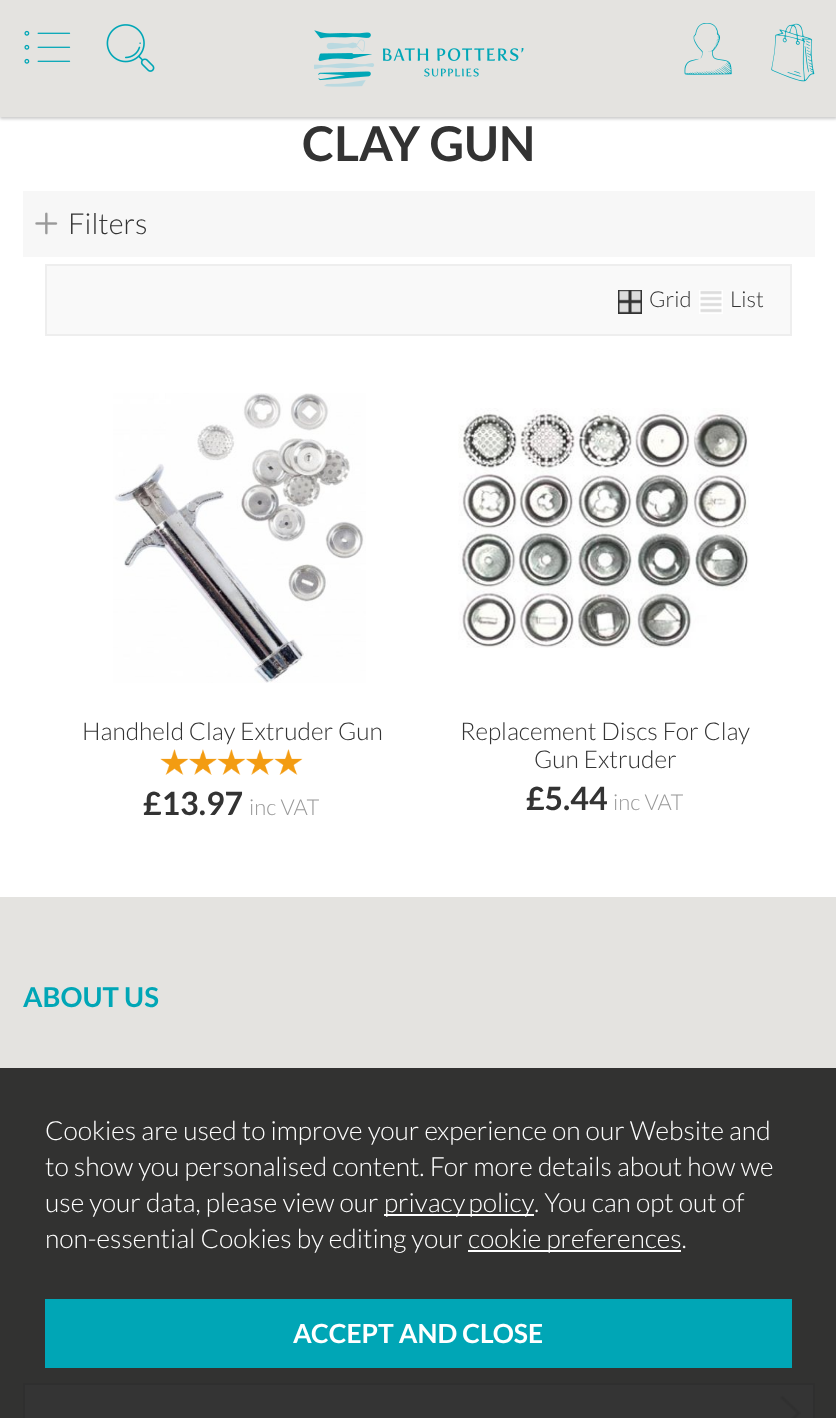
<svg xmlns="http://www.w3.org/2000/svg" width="836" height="1418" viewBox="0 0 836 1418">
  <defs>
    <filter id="blur1" x="-50%" y="-200%" width="200%" height="500%"><feGaussianBlur stdDeviation="1.5"/></filter>
  </defs>
  <rect width="100%" height="100%" fill="#ffffff"/>
  <rect x="0" y="2" width="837" height="117" fill="#000000" fill-opacity="0.2" filter="url(#blur1)"/>
  <rect x="0" y="0" width="836" height="117" fill="#e4e3e0"/>
  <image x="24" y="30" width="47" height="34" href="img1.png"/>
  <image x="106" y="24" width="49" height="48" href="img2.png"/>
  <image x="314" y="30" width="210" height="57" href="img3.png"/>
  <image x="684" y="23" width="48" height="52" href="img4.png"/>
  <image x="771" y="23" width="44" height="59" href="img5.png"/>
  <text x="302" y="161" font-family="Lato" font-size="48" font-weight="bold" fill="#333333">CLAY GUN</text>
  <rect x="23" y="191" width="792" height="66" fill="#f7f7f7"/>
  <image x="35" y="212" width="23" height="23" href="img6.png"/>
  <text x="68" y="234" font-family="Lato" font-size="29" font-weight="300" fill="#333333">Filters</text>
  <rect x="46" y="265" width="745" height="70" fill="#f9f9f9" stroke="#eeeeee" stroke-width="2"/>
  <rect x="618" y="290" width="24" height="24" fill="#333333"/>
  <image x="619" y="290" width="22" height="23" href="img7.png"/>
  <text x="649" y="307" font-family="Lato" font-size="22" font-weight="300" fill="#333333">Grid</text>
  <rect x="699" y="290" width="24" height="24" fill="#ffffff"/>
  <image x="700" y="290" width="22" height="23" href="img8.png"/>
  <text x="730" y="307" font-family="Lato" font-size="22" font-weight="300" fill="#333333">List</text>
  <image x="113" y="393" width="253" height="290" href="img9.png"/>
  <text x="82" y="740" font-family="Lato" font-size="24.5" font-weight="300" fill="#333333">Handheld Clay Extruder Gun</text>
  <image x="160" y="749" width="143" height="26" href="img10.png"/>
  <text x="143" y="815" font-family="Lato" font-size="32" font-weight="bold" fill="#333333">£13.97</text>
  <text x="249" y="815" font-family="Lato" font-size="22" font-weight="300" fill="#999999">inc VAT</text>
  <image x="458" y="408" width="291" height="240" href="img11.png"/>
  <text x="460" y="740" font-family="Lato" font-size="24.5" font-weight="300" fill="#333333">Replacement Discs For Clay</text>
  <text x="534" y="768" font-family="Lato" font-size="24.5" font-weight="300" fill="#333333">Gun Extruder</text>
  <text x="526" y="810" font-family="Lato" font-size="32" font-weight="bold" fill="#333333">£5.44</text>
  <text x="613" y="810" font-family="Lato" font-size="22" font-weight="300" fill="#999999">inc VAT</text>
  <rect x="0" y="897" width="836" height="521" fill="#e4e3e0"/>
  <text x="23" y="1007" font-family="Lato" font-size="27.5" font-weight="bold" fill="#00a6b6">ABOUT US</text>
  <rect x="24" y="1384" width="790" height="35" fill="#ffffff" stroke="#cccccc" stroke-width="2"/>
  <image x="780" y="1395" width="22" height="23" href="img12.png"/>
  <rect x="0" y="1068" width="836" height="350" fill="#1e1e1e" fill-opacity="0.9"/>
  <text x="45" y="1140" font-family="Lato" font-size="26.4" font-weight="300" fill="#ffffff">Cookies are used to improve your experience on our Website and</text>
  <text x="45" y="1176" font-family="Lato" font-size="26.4" font-weight="300" fill="#ffffff">to show you personalised content. For more details about how we</text>
  <text x="45" y="1212" font-family="Lato" font-size="26.4" font-weight="300" fill="#ffffff">use your data, please view our</text>
  <rect x="384" y="1214" width="150" height="2" fill="#ffffff"/>
  <text x="384" y="1212" word-spacing="-2" font-family="Lato" font-size="26.4" font-weight="300" fill="#ffffff">privacy policy</text>
  <text x="534" y="1212" font-family="Lato" font-size="26.4" font-weight="300" fill="#ffffff">. You can opt out of</text>
  <text x="45" y="1248" font-family="Lato" font-size="26.4" font-weight="300" fill="#ffffff">non-essential Cookies by editing your</text>
  <rect x="468" y="1250" width="213" height="2" fill="#ffffff"/>
  <text x="468" y="1248" font-family="Lato" font-size="26.4" font-weight="300" fill="#ffffff">cookie preferences.</text>
  <rect x="45" y="1299" width="747" height="69" fill="#00a6b6"/>
  <text x="293" y="1343" font-family="Lato" font-size="26.4" font-weight="bold" fill="#ffffff">ACCEPT AND CLOSE</text>
</svg>
